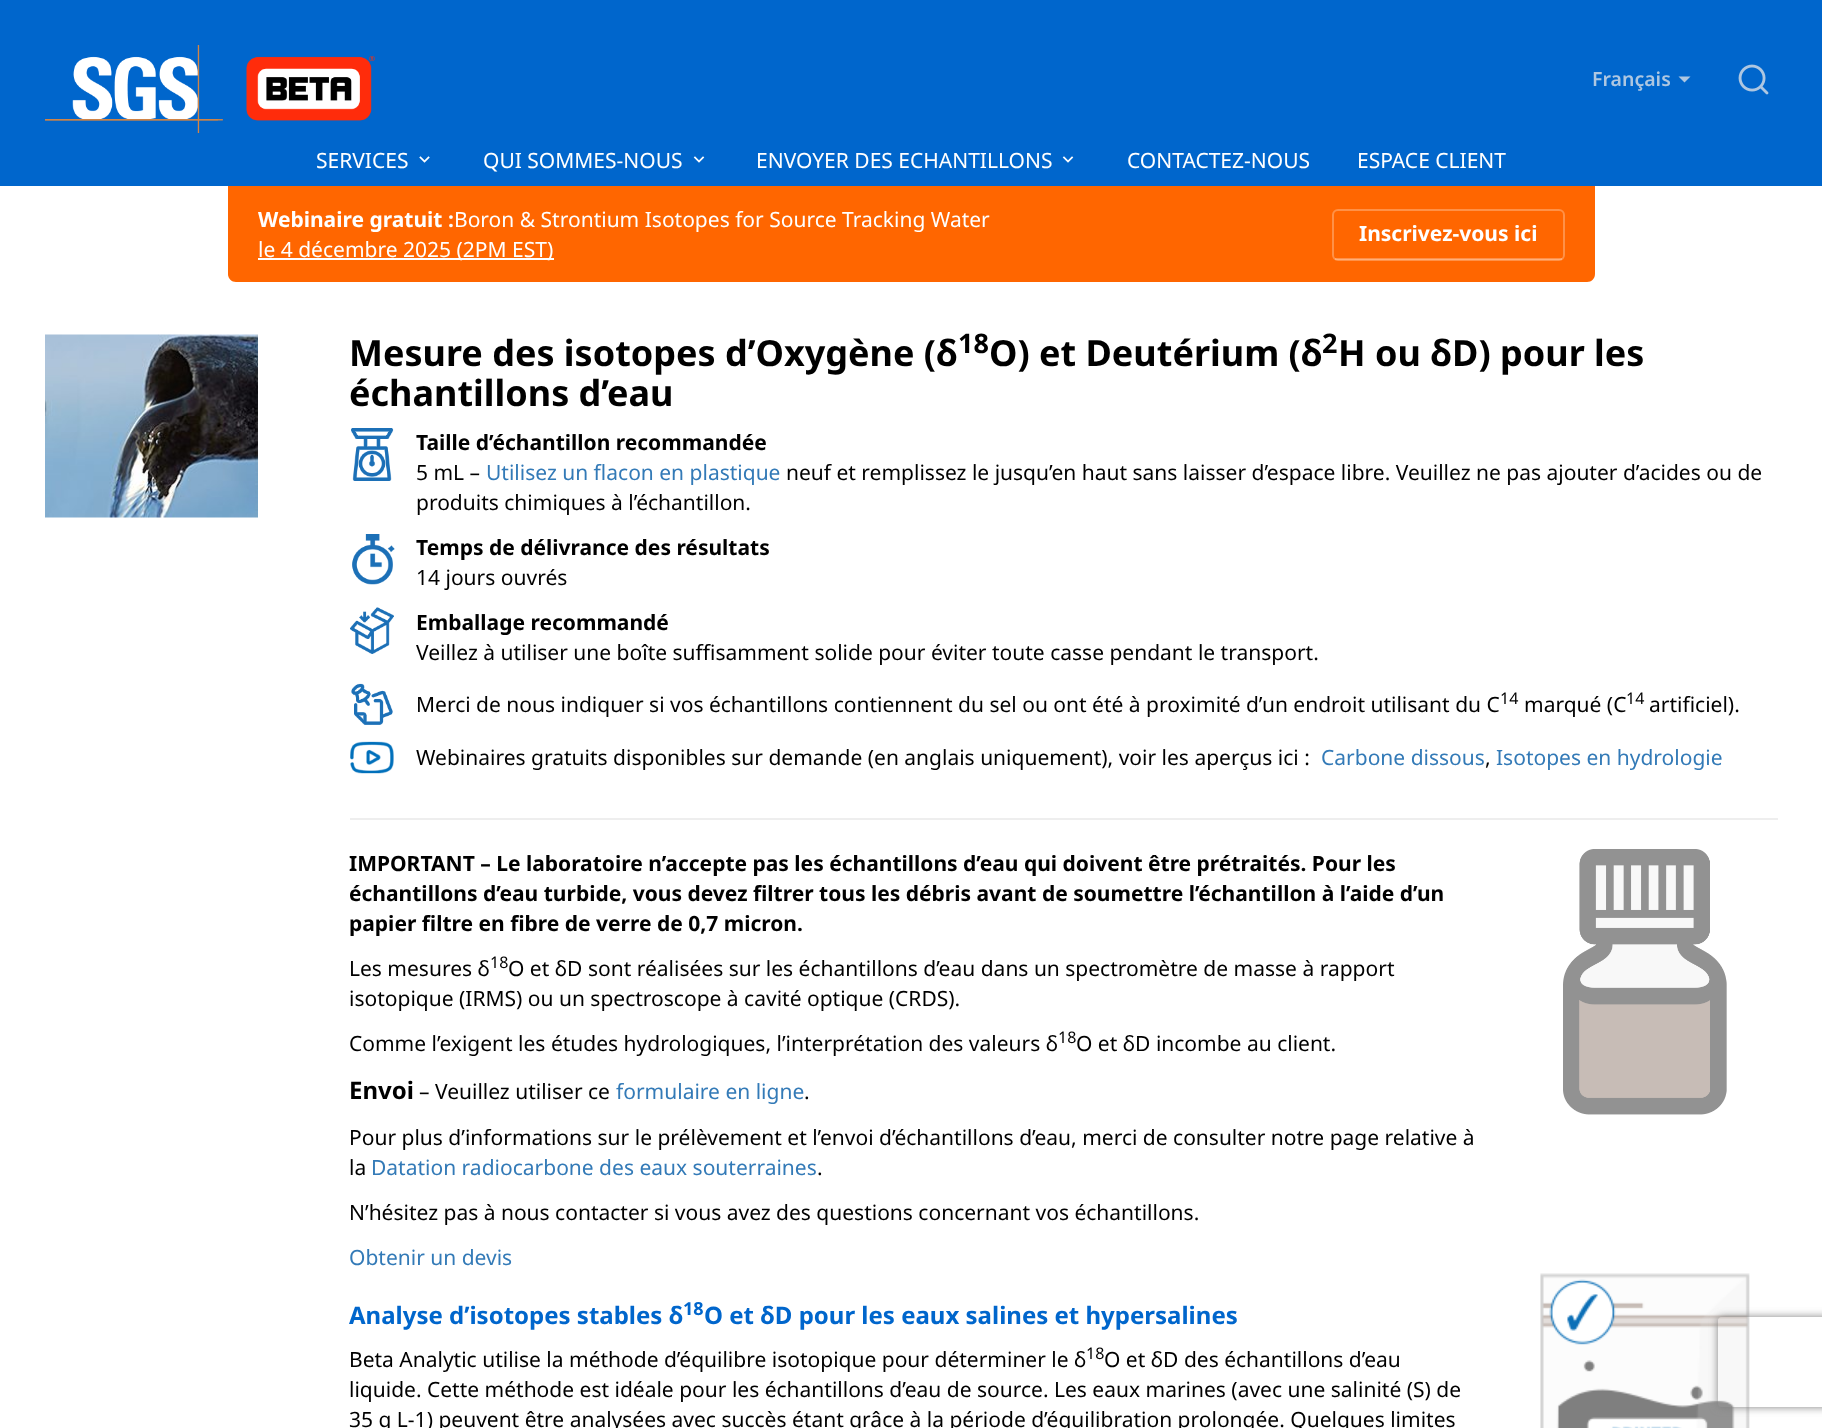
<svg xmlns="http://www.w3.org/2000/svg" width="1822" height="1428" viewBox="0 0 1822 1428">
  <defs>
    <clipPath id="clip1"><path d="M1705 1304H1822V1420H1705ZM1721 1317H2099C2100.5 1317 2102 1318.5 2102 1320V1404C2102 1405.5 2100.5 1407 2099 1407H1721C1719.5 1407 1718 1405.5 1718 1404V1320C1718 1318.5 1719.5 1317 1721 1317Z" clip-rule="evenodd"/></clipPath>
    <filter id="blur1" x="-50%" y="-200%" width="200%" height="500%"><feGaussianBlur stdDeviation="4"/></filter>
  </defs>
  <rect width="100%" height="100%" fill="#ffffff"/>
  <rect x="0" y="0" width="1822" height="186" fill="#0066cc"/>
  <image x="45" y="45" width="330" height="88" href="img1.png"/>
  <text x="1592" y="86" font-family="Noto Sans" font-size="19.5" font-weight="600" fill="#aec7e1">Français</text>
  <path d="M1678.5 76.5H1690.5L1684.5 82.5Z" fill="#aec7e1"/>
  <image x="1738" y="64" width="31" height="31" href="img2.png"/>
  <text x="316" y="168" font-family="Noto Sans" font-size="21" fill="#ffffff">SERVICES</text>
  <image x="419" y="156" width="11" height="7" href="img3.png"/>
  <text x="483" y="168" font-family="Noto Sans" font-size="21" fill="#ffffff">QUI SOMMES-NOUS</text>
  <image x="693" y="156" width="12" height="7" href="img4.png"/>
  <text x="756" y="168" font-family="Noto Sans" font-size="21" fill="#ffffff">ENVOYER DES ECHANTILLONS</text>
  <image x="1062" y="156" width="12" height="7" href="img4.png"/>
  <text x="1127" y="168" font-family="Noto Sans" font-size="21" fill="#ffffff">CONTACTEZ-NOUS</text>
  <text x="1357" y="168" font-family="Noto Sans" font-size="21" fill="#ffffff">ESPACE CLIENT</text>
  <path d="M228 186H1595V274C1595 278.5 1591.5 282 1587 282H236C231.5 282 228 278.5 228 274Z" fill="#ff6600"/>
  <text x="258" y="227" font-family="Noto Sans" font-size="21" font-weight="bold" fill="#ffffff">Webinaire gratuit :</text>
  <text x="454" y="227" font-family="Noto Sans" font-size="21" fill="#ffffff">Boron &amp; Strontium Isotopes for Source Tracking Water</text>
  <rect x="258" y="258" width="296" height="2" fill="#ffffff"/>
  <text x="258" y="257" font-family="Noto Sans" font-size="21" fill="#ffffff">le 4 décembre 2025 (2PM EST)</text>
  <rect x="1333" y="210" width="231" height="50" rx="5" fill="none" stroke="#ff9147" stroke-width="2"/>
  <rect x="1335" y="258" width="227" height="2" fill="#ffffff" fill-opacity="0.28"/>
  <text x="1359" y="241" font-family="Noto Sans" font-size="21" font-weight="bold" fill="#ffffff">Inscrivez-vous ici</text>
  <image x="45" y="334" width="213" height="184" href="img5.png"/>
  <text x="349" y="366" font-family="Noto Sans" font-size="36" font-weight="bold" fill="#000000">Mesure des isotopes d’Oxygène (δ</text>
  <text x="958" y="353" font-family="Noto Sans" font-size="27" font-weight="bold" fill="#000000">18</text>
  <text x="989" y="366" font-family="Noto Sans" font-size="36" font-weight="bold" fill="#000000">O) et Deutérium (δ</text>
  <text x="1322" y="353" font-family="Noto Sans" font-size="27" font-weight="bold" fill="#000000">2</text>
  <text x="1338" y="366" font-family="Noto Sans" font-size="36" font-weight="bold" fill="#000000">H ou δD) pour les</text>
  <text x="349" y="406" font-family="Noto Sans" font-size="36" font-weight="bold" fill="#000000">échantillons d’eau</text>
  <image x="351" y="428" width="43" height="53" href="img6.png"/>
  <text x="416" y="450" font-family="Noto Sans" font-size="21" font-weight="bold" fill="#000000">Taille d’échantillon recommandée</text>
  <text x="416" y="480" font-family="Noto Sans" font-size="21" fill="#000000">5 mL –</text>
  <text x="486" y="480" font-family="Noto Sans" font-size="21" fill="#337ab7">Utilisez un flacon en plastique</text>
  <text x="786" y="480" font-family="Noto Sans" font-size="21" fill="#000000">neuf et remplissez le jusqu’en haut sans laisser d’espace libre. Veuillez ne pas ajouter d’acides ou de</text>
  <text x="416" y="510" font-family="Noto Sans" font-size="21" fill="#000000">produits chimiques à l’échantillon.</text>
  <image x="352" y="534" width="43" height="51" href="img7.png"/>
  <text x="416" y="555" font-family="Noto Sans" font-size="21" font-weight="bold" fill="#000000">Temps de délivrance des résultats</text>
  <text x="416" y="585" font-family="Noto Sans" font-size="21" fill="#000000">14 jours ouvrés</text>
  <image x="350" y="607" width="44" height="47" href="img8.png"/>
  <text x="416" y="630" font-family="Noto Sans" font-size="21" font-weight="bold" fill="#000000">Emballage recommandé</text>
  <text x="416" y="660" font-family="Noto Sans" font-size="21" fill="#000000">Veillez à utiliser une boîte suffisamment solide pour éviter toute casse pendant le transport.</text>
  <image x="351" y="683" width="42" height="42" href="img9.png"/>
  <text x="416" y="712" font-family="Noto Sans" font-size="21" fill="#000000">Merci de nous indiquer si vos échantillons contiennent du sel ou ont été à proximité d’un endroit utilisant du C</text>
  <text x="1500" y="704" font-family="Noto Sans" font-size="16" fill="#000000">14</text>
  <text x="1524" y="712" font-family="Noto Sans" font-size="21" fill="#000000">marqué (C</text>
  <text x="1626" y="704" font-family="Noto Sans" font-size="16" fill="#000000">14</text>
  <text x="1649" y="712" font-family="Noto Sans" font-size="21" fill="#000000">artificiel).</text>
  <image x="350" y="741" width="44" height="33" href="img10.png"/>
  <text x="416" y="765" font-family="Noto Sans" font-size="21" fill="#000000">Webinaires gratuits disponibles sur demande (en anglais uniquement), voir les aperçus ici :</text>
  <text x="1321" y="765" font-family="Noto Sans" font-size="21" fill="#337ab7">Carbone dissous</text>
  <text x="1485" y="765" font-family="Noto Sans" font-size="21" fill="#000000">,</text>
  <text x="1496" y="765" font-family="Noto Sans" font-size="21" fill="#337ab7">Isotopes en hydrologie</text>
  <rect x="350" y="818" width="1428" height="2" fill="#eeeeee"/>
  <text x="349" y="871" font-family="Noto Sans" font-size="21" font-weight="bold" fill="#000000">IMPORTANT – Le laboratoire n’accepte pas les échantillons d’eau qui doivent être prétraités. Pour les</text>
  <image x="1563" y="849" width="164" height="266" href="img11.png"/>
  <text x="349" y="901" font-family="Noto Sans" font-size="21" font-weight="bold" fill="#000000">échantillons d’eau turbide, vous devez filtrer tous les débris avant de soumettre l’échantillon à l’aide d’un</text>
  <text x="349" y="931" font-family="Noto Sans" font-size="21" font-weight="bold" fill="#000000">papier filtre en fibre de verre de 0,7 micron.</text>
  <text x="349" y="976" font-family="Noto Sans" font-size="21" fill="#000000">Les mesures δ</text>
  <text x="490" y="968" font-family="Noto Sans" font-size="16" fill="#000000">18</text>
  <text x="508" y="976" font-family="Noto Sans" font-size="21" fill="#000000">O et δD sont réalisées sur les échantillons d’eau dans un spectromètre de masse à rapport</text>
  <text x="349" y="1006" font-family="Noto Sans" font-size="21" fill="#000000">isotopique (IRMS) ou un spectroscope à cavité optique (CRDS).</text>
  <text x="349" y="1051" font-family="Noto Sans" font-size="21" fill="#000000">Comme l’exigent les études hydrologiques, l’interprétation des valeurs δ</text>
  <text x="1058" y="1043" font-family="Noto Sans" font-size="16" fill="#000000">18</text>
  <text x="1076" y="1051" font-family="Noto Sans" font-size="21" fill="#000000">O et δD incombe au client.</text>
  <text x="349" y="1099" font-family="Noto Sans" font-size="24" font-weight="bold" fill="#000000">Envoi</text>
  <text x="419" y="1099" font-family="Noto Sans" font-size="21" fill="#000000">– Veuillez utiliser ce</text>
  <text x="616" y="1099" font-family="Noto Sans" font-size="21" fill="#337ab7">formulaire en ligne</text>
  <text x="804" y="1099" font-family="Noto Sans" font-size="21" fill="#000000">.</text>
  <text x="349" y="1145" font-family="Noto Sans" font-size="21" fill="#000000">Pour plus d’informations sur le prélèvement et l’envoi d’échantillons d’eau, merci de consulter notre page relative à</text>
  <text x="349" y="1175" font-family="Noto Sans" font-size="21" fill="#000000">la</text>
  <text x="371" y="1175" font-family="Noto Sans" font-size="21" fill="#337ab7">Datation radiocarbone des eaux souterraines</text>
  <text x="817" y="1175" font-family="Noto Sans" font-size="21" fill="#000000">.</text>
  <text x="349" y="1220" font-family="Noto Sans" font-size="21" fill="#000000">N’hésitez pas à nous contacter si vous avez des questions concernant vos échantillons.</text>
  <text x="349" y="1265" font-family="Noto Sans" font-size="21" fill="#337ab7">Obtenir un devis</text>
  <image x="1540" y="1273" width="210" height="155" href="img12.png"/>
  <text x="349" y="1324" font-family="Noto Sans" font-size="24" font-weight="bold" fill="#0066cc">Analyse d’isotopes stables δ</text>
  <text x="683" y="1315" font-family="Noto Sans" font-size="18" font-weight="bold" fill="#0066cc">18</text>
  <text x="704" y="1324" font-family="Noto Sans" font-size="24" font-weight="bold" fill="#0066cc">O et δD pour les eaux salines et hypersalines</text>
  <text x="349" y="1367" font-family="Noto Sans" font-size="21" fill="#000000">Beta Analytic utilise la méthode d’équilibre isotopique pour déterminer le δ</text>
  <text x="1086" y="1359" font-family="Noto Sans" font-size="16" fill="#000000">18</text>
  <text x="1104" y="1367" font-family="Noto Sans" font-size="21" fill="#000000">O et δD des échantillons d’eau</text>
  <text x="349" y="1397" font-family="Noto Sans" font-size="21" fill="#000000">liquide. Cette méthode est idéale pour les échantillons d’eau de source. Les eaux marines (avec une salinité (S) de</text>
  <text x="349" y="1427" font-family="Noto Sans" font-size="21" fill="#000000">35 g L-1) peuvent être analysées avec succès étant grâce à la période d’équilibration prolongée. Quelques limites</text>
  <g clip-path="url(#clip1)">
    <rect x="1718" y="1317" width="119" height="90" rx="3" fill="#808080" filter="url(#blur1)"/>
  </g>
</svg>
